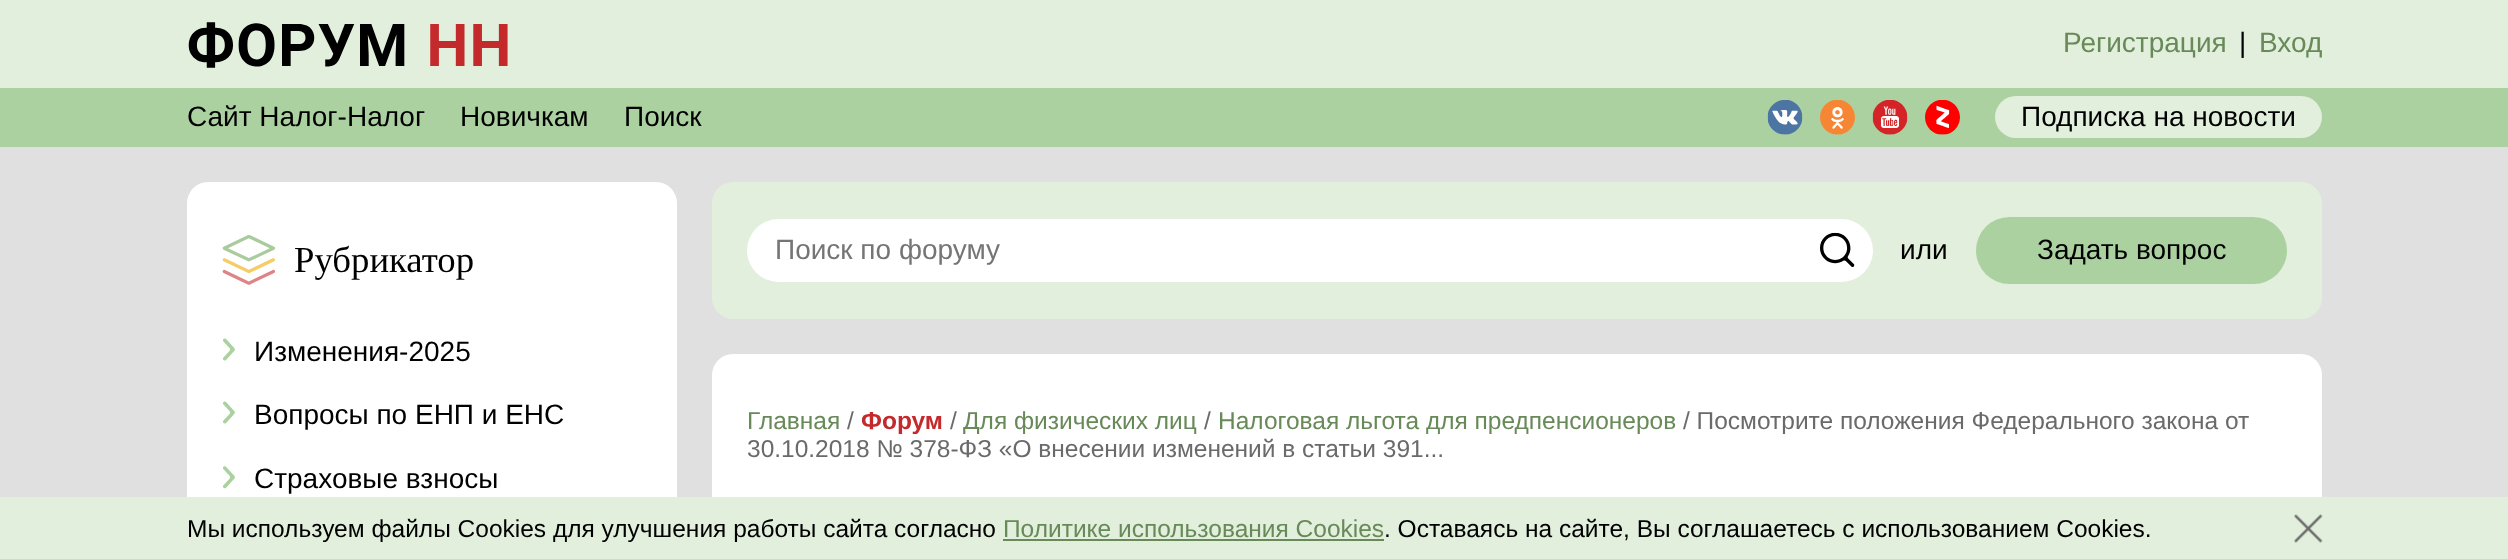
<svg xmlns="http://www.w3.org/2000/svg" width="2508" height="559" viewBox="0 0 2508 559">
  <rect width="100%" height="100%" fill="#e0e0e0"/>
  <rect x="0" y="0" width="2508" height="88" fill="#e1efdc"/>
  <image x="188" y="22" width="320" height="46" href="img1.png"/>
  <text x="2063" y="52" font-family="Liberation Sans" font-size="28" fill="#688958">Регистрация</text>
  <text x="2239" y="52" font-family="Liberation Sans" font-size="28" fill="#000000">|</text>
  <text x="2259" y="52" font-family="Liberation Sans" font-size="28" fill="#688958">Вход</text>
  <rect x="0" y="88" width="2508" height="59" fill="#acd1a0"/>
  <text x="187" y="126" font-family="Liberation Sans" font-size="28" fill="#000000">Сайт Налог-Налог</text>
  <text x="460" y="126" font-family="Liberation Sans" font-size="28" fill="#000000">Новичкам</text>
  <text x="624" y="126" font-family="Liberation Sans" font-size="28" fill="#000000">Поиск</text>
  <rect x="1769" y="102" width="32" height="31" rx="15.5" fill="#ffffff"/>
  <image x="1767" y="100" width="36" height="35" href="img2.png"/>
  <circle cx="1837.5" cy="117.5" r="15.5" fill="#ffffff"/>
  <image x="1820" y="100" width="35" height="35" href="img3.png"/>
  <rect x="1874" y="102" width="32" height="31" rx="15.5" fill="#ffffff"/>
  <image x="1872" y="100" width="36" height="35" href="img4.png"/>
  <circle cx="1942.5" cy="117.5" r="15.5" fill="#ffffff"/>
  <image x="1925" y="100" width="35" height="35" href="img5.png"/>
  <rect x="1995" y="96" width="327" height="42" rx="21" fill="#e1efdc"/>
  <text x="2021" y="126" font-family="Liberation Sans" font-size="28" fill="#000000">Подписка на новости</text>
  <rect x="187" y="182" width="490" height="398" rx="21" fill="#ffffff"/>
  <image x="222" y="235" width="54" height="50" href="img6.png"/>
  <text x="294" y="272" font-family="Liberation Serif" font-size="36.75" fill="#000000">Рубрикатор</text>
  <image x="223" y="338" width="12" height="23" href="img7.png"/>
  <text x="254" y="361" font-family="Liberation Sans" font-size="28" fill="#000000">Изменения-2025</text>
  <image x="223" y="401" width="12" height="23" href="img7.png"/>
  <text x="254" y="424" font-family="Liberation Sans" font-size="28" fill="#000000">Вопросы по ЕНП и ЕНС</text>
  <image x="223" y="466" width="12" height="23" href="img8.png"/>
  <text x="254" y="488" font-family="Liberation Sans" font-size="28" fill="#000000">Страховые взносы</text>
  <rect x="712" y="182" width="1610" height="137" rx="21" fill="#e1efdc"/>
  <rect x="747" y="219" width="1126" height="63" rx="31.5" fill="#ffffff"/>
  <text x="775" y="259" font-family="Liberation Sans" font-size="28" fill="#757575">Поиск по форуму</text>
  <image x="1820" y="232" width="35" height="35" href="img9.png"/>
  <text x="1900" y="259" font-family="Liberation Sans" font-size="28" fill="#000000">или</text>
  <rect x="1976" y="217" width="311" height="67" rx="33.5" fill="#acd1a0"/>
  <text x="2037" y="259" font-family="Liberation Sans" font-size="28" fill="#000000">Задать вопрос</text>
  <rect x="712" y="354" width="1610" height="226" rx="21" fill="#ffffff"/>
  <text x="747" y="429" font-family="Liberation Sans" font-size="24.5" fill="#688958">Главная</text>
  <text x="847" y="429" font-family="Liberation Sans" font-size="24.5" fill="#6a6a6a">/</text>
  <text x="861" y="429" font-family="Liberation Sans" font-size="24.5" font-weight="bold" fill="#c4292c">Форум</text>
  <text x="950" y="429" font-family="Liberation Sans" font-size="24.5" fill="#6a6a6a">/</text>
  <text x="963" y="429" font-family="Liberation Sans" font-size="24.5" fill="#688958">Для физических лиц</text>
  <text x="1204" y="429" font-family="Liberation Sans" font-size="24.5" fill="#6a6a6a">/</text>
  <text x="1218" y="429" font-family="Liberation Sans" font-size="24.5" fill="#688958">Налоговая льгота для предпенсионеров</text>
  <text x="1683" y="429" font-family="Liberation Sans" font-size="24.5" fill="#6a6a6a">/ Посмотрите положения Федерального закона от</text>
  <text x="747" y="457" font-family="Liberation Sans" font-size="24.5" fill="#6a6a6a">30.10.2018 № 378-ФЗ «О внесении изменений в статьи 391...</text>
  <rect x="0" y="497" width="2508" height="62" fill="#e1efdc"/>
  <text x="187" y="537" font-family="Liberation Sans" font-size="24.5" fill="#000000">Мы используем файлы Cookies для улучшения работы сайта согласно</text>
  <text x="1003" y="537" font-family="Liberation Sans" font-size="24.5" fill="#688958">Политике использования Cookies</text>
  <rect x="1003" y="539" width="381" height="2" fill="#688958"/>
  <text x="1384" y="537" font-family="Liberation Sans" font-size="24.5" fill="#000000">. Оставаясь на сайте, Вы соглашаетесь с использованием Cookies.</text>
  <image x="2294" y="514" width="29" height="29" href="img10.png"/>
</svg>
